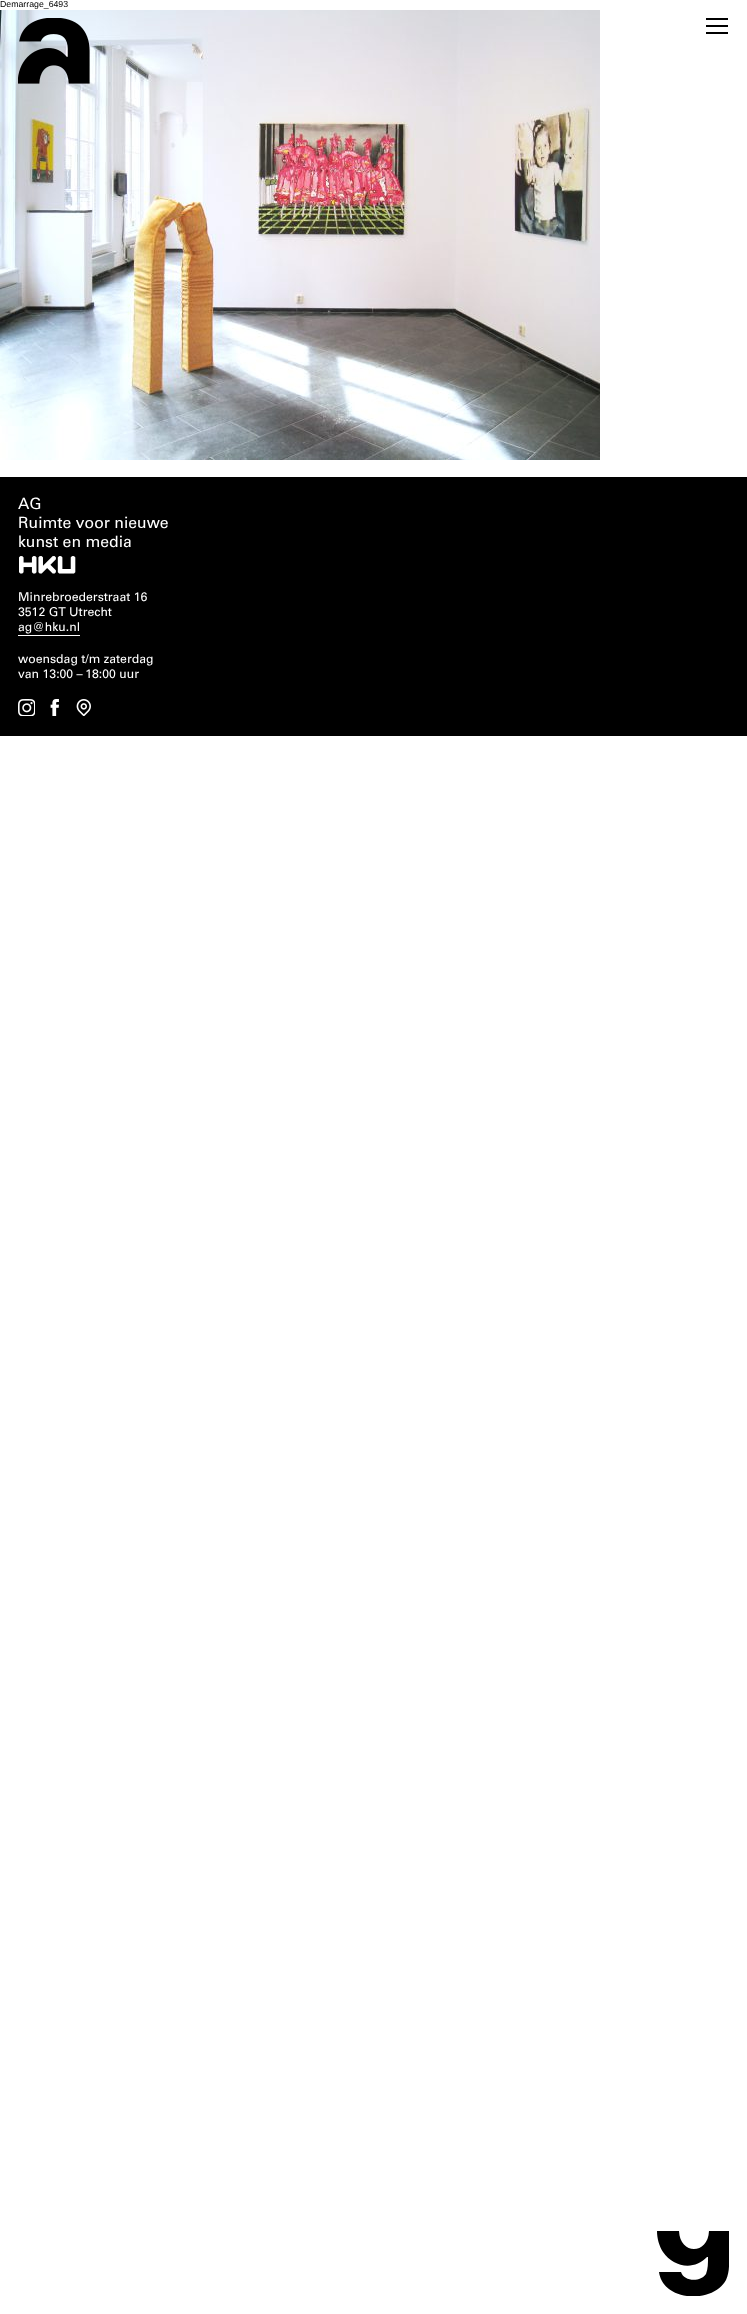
<svg xmlns="http://www.w3.org/2000/svg" width="747" height="2314" viewBox="0 0 747 2314">
  <defs>
    <clipPath id="clip1"><rect x="657" y="2230" width="72" height="66"/></clipPath>
  </defs>
  <rect width="100%" height="100%" fill="#ffffff"/>
  <text x="0" y="7" font-family="Liberation Sans" font-size="8.75" fill="#000000">Demarrage_6493</text>
  <image x="0" y="10" width="600" height="450" href="img1.png"/>
  <image x="18" y="18" width="72" height="66" href="img2.png"/>
  <rect x="706" y="18" width="22" height="2" fill="#000000"/>
  <rect x="706" y="25" width="22" height="2" fill="#000000"/>
  <rect x="706" y="32" width="22" height="2" fill="#000000"/>
  <rect x="0" y="477" width="747" height="259" fill="#000000"/>
  <text x="18" y="509" font-family="'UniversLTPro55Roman'" font-size="15.75" fill="#ffffff">AG</text>
  <text x="18" y="528" font-family="'UniversLTPro55Roman'" font-size="15.75" fill="#ffffff">Ruimte voor nieuwe</text>
  <text x="18" y="547" font-family="'UniversLTPro55Roman'" font-size="15.75" fill="#ffffff">kunst en media</text>
  <image x="19" y="556" width="57" height="18" href="img3.png"/>
  <text x="18" y="601" font-family="'UniversLTPro55Roman'" font-size="12.25" fill="#ffffff">Minrebroederstraat 16</text>
  <text x="18" y="616" font-family="'UniversLTPro55Roman'" font-size="12.25" fill="#ffffff">3512 GT Utrecht</text>
  <text x="18" y="631" font-family="'UniversLTPro55Roman'" font-size="12.25" fill="#ffffff">ag@hku.nl</text>
  <rect x="18" y="635" width="62" height="1" fill="#ffffff"/>
  <text x="18" y="663" font-family="'UniversLTPro55Roman'" font-size="12.25" fill="#ffffff">woensdag t/m zaterdag</text>
  <text x="18" y="678" font-family="'UniversLTPro55Roman'" font-size="12.25" fill="#ffffff">van 13:00 – 18:00 uur</text>
  <image x="18" y="699" width="17" height="17" href="img4.png"/>
  <image x="50" y="699" width="9" height="17" href="img5.png"/>
  <image x="76" y="699" width="15" height="17" href="img6.png"/>
  <g clip-path="url(#clip1)">
    <path d="M729 2231H709C708 2255 680 2255 679 2231H657C657 2238 659 2246 663 2252C673 2267 694 2271 707 2257H708C708 2263 708 2269 706 2274C701 2282 684 2282 681 2272H659C663 2302 713 2304 726 2280C730 2271 729 2262 729 2252Z" fill="#000000"/>
  </g>
</svg>
